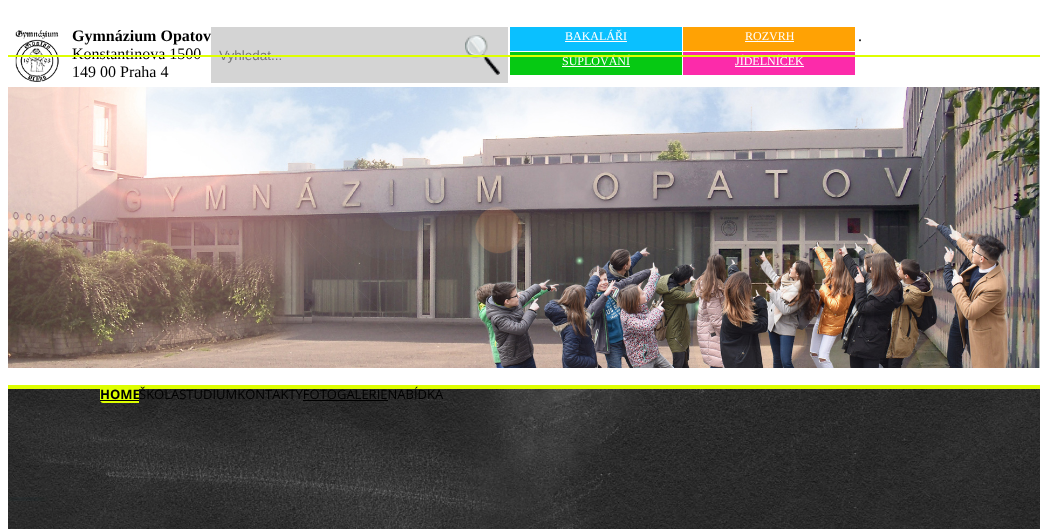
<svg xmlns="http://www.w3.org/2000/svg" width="1048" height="529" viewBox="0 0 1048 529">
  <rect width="100%" height="100%" fill="#ffffff"/>
  <image x="15" y="30" width="44" height="52" href="img1.png"/>
  <text x="72" y="41" font-family="Liberation Serif" font-size="16" font-weight="bold" fill="#000000">Gymnázium Opatov</text>
  <text x="72" y="59" font-family="Liberation Serif" font-size="16" fill="#000000">Konstantinova 1500</text>
  <text x="72" y="77" font-family="Liberation Serif" font-size="16" fill="#000000">149 00 Praha 4</text>
  <rect x="211" y="27" width="297" height="56" fill="#d4d4d4"/>
  <image x="465" y="35" width="35" height="40" href="img2.png"/>
  <rect x="510" y="27" width="172" height="24" fill="#0ac0ff"/>
  <text x="565" y="40" font-family="Liberation Serif" font-size="12" fill="#ffffff">BAKALÁŘI</text>
  <rect x="565" y="41" width="62" height="1" fill="#ffffff"/>
  <rect x="683" y="27" width="172" height="24" fill="#ffa204"/>
  <text x="745" y="40" font-family="Liberation Serif" font-size="12" fill="#ffffff">ROZVRH</text>
  <rect x="745" y="41" width="49" height="1" fill="#ffffff"/>
  <rect x="510" y="52" width="172" height="23" fill="#06c913"/>
  <text x="562" y="65" font-family="Liberation Serif" font-size="12" fill="#ffffff">SUPLOVÁNÍ</text>
  <rect x="562" y="66" width="68" height="1" fill="#ffffff"/>
  <rect x="683" y="52" width="172" height="23" fill="#fc2baa"/>
  <text x="735" y="65" font-family="Liberation Serif" font-size="12" fill="#ffffff">JÍDELNÍČEK</text>
  <rect x="735" y="66" width="69" height="1" fill="#ffffff"/>
  <text x="858" y="41" font-family="Liberation Serif" font-size="16" fill="#000000">.</text>
  <text x="219" y="60" font-family="Liberation Sans" font-size="13.5" fill="#757575">Vyhledat...</text>
  <rect x="8" y="55" width="1032" height="2" fill="#deff00"/>
  <image x="8" y="87" width="1032" height="281" href="img3.png"/>
  <image x="8" y="389" width="1032" height="140" href="img4.png"/>
  <rect x="8" y="385" width="1032" height="4" fill="#deff00"/>
  <path d="M103 385H139V403H103C101.5 403 100 401.5 100 400V388C100 386.5 101.5 385 103 385Z" fill="#deff00"/>
  <text x="100" y="399" font-family="Open Sans" font-size="13" font-weight="bold" fill="#000000">HOME</text>
  <rect x="100" y="400" width="39" height="1" fill="#000000"/>
  <text x="139" y="399" font-family="Open Sans" font-size="13" fill="#000000">ŠKOLASTUDIUMKONTAKTYFOTOGALERIENABÍDKA</text>
  <rect x="303" y="400" width="85" height="1" fill="#000000"/>
</svg>
